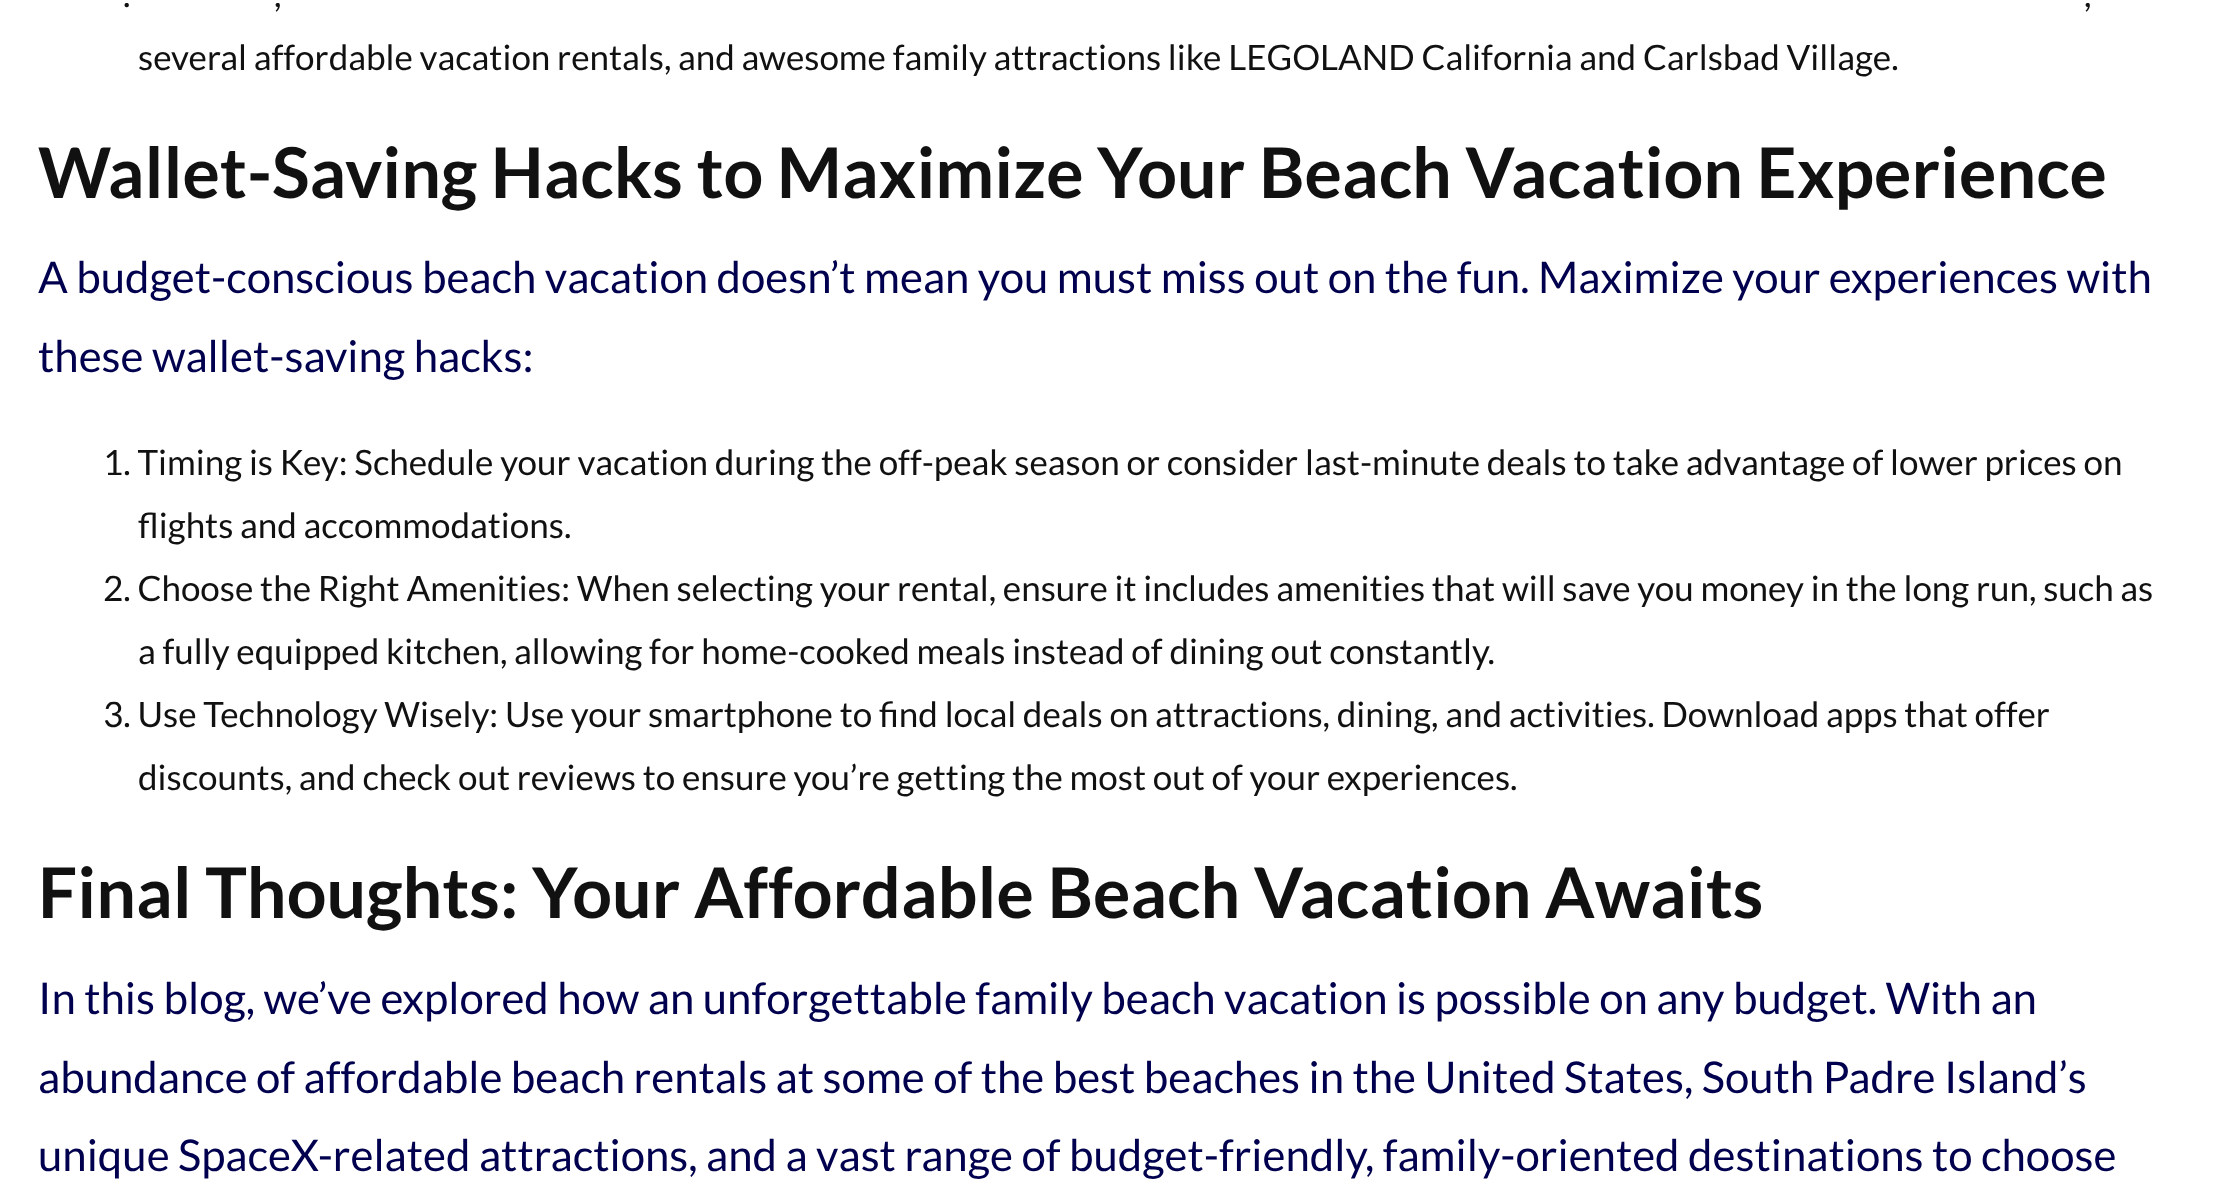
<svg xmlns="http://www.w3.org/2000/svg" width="2214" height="1180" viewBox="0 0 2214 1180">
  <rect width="100%" height="100%" fill="#ffffff"/>
  <text x="123" y="7" font-family="Lato" font-size="35" fill="#111111">.</text>
  <text x="274" y="7" font-family="Lato" font-size="35" fill="#111111">,</text>
  <text x="2084" y="7" font-family="Lato" font-size="35" fill="#111111">,</text>
  <text x="138" y="70" font-family="Lato" font-size="35" fill="#111111">several affordable vacation rentals, and awesome family attractions like LEGOLAND California and Carlsbad Village.</text>
  <text x="38" y="198" font-family="Lato" font-size="70" font-weight="bold" fill="#111111">Wallet-Saving Hacks to Maximize Your Beach Vacation Experience</text>
  <text x="38" y="293" font-family="Lato" font-size="43.75" fill="#00004e">A budget-conscious beach vacation doesn’t mean you must miss out on the fun. Maximize your experiences with</text>
  <text x="38" y="372" font-family="Lato" font-size="43.75" fill="#00004e">these wallet-saving hacks:</text>
  <text x="103" y="475" font-family="Lato" font-size="35" fill="#111111">1. Timing is Key: Schedule your vacation during the off-peak season or consider last-minute deals to take advantage of lower prices on</text>
  <text x="138" y="538" font-family="Lato" font-size="35" fill="#111111">flights and accommodations.</text>
  <text x="103" y="601" font-family="Lato" font-size="35" fill="#111111">2. Choose the Right Amenities: When selecting your rental, ensure it includes amenities that will save you money in the long run, such as</text>
  <text x="138" y="664" font-family="Lato" font-size="35" fill="#111111">a fully equipped kitchen, allowing for home-cooked meals instead of dining out constantly.</text>
  <text x="103" y="727" font-family="Lato" font-size="35" fill="#111111">3. Use Technology Wisely: Use your smartphone to find local deals on attractions, dining, and activities. Download apps that offer</text>
  <text x="138" y="790" font-family="Lato" font-size="35" fill="#111111">discounts, and check out reviews to ensure you’re getting the most out of your experiences.</text>
  <text x="38" y="918" font-family="Lato" font-size="70" font-weight="bold" fill="#111111">Final Thoughts: Your Affordable Beach Vacation Awaits</text>
  <text x="38" y="1014" font-family="Lato" font-size="43.75" fill="#00004e">In this blog, we’ve explored how an unforgettable family beach vacation is possible on any budget. With an</text>
  <text x="38" y="1093" font-family="Lato" font-size="43.75" fill="#00004e">abundance of affordable beach rentals at some of the best beaches in the United States, South Padre Island’s</text>
  <text x="38" y="1171" font-family="Lato" font-size="43.75" fill="#00004e">unique SpaceX-related attractions, and a vast range of budget-friendly, family-oriented destinations to choose</text>
</svg>
